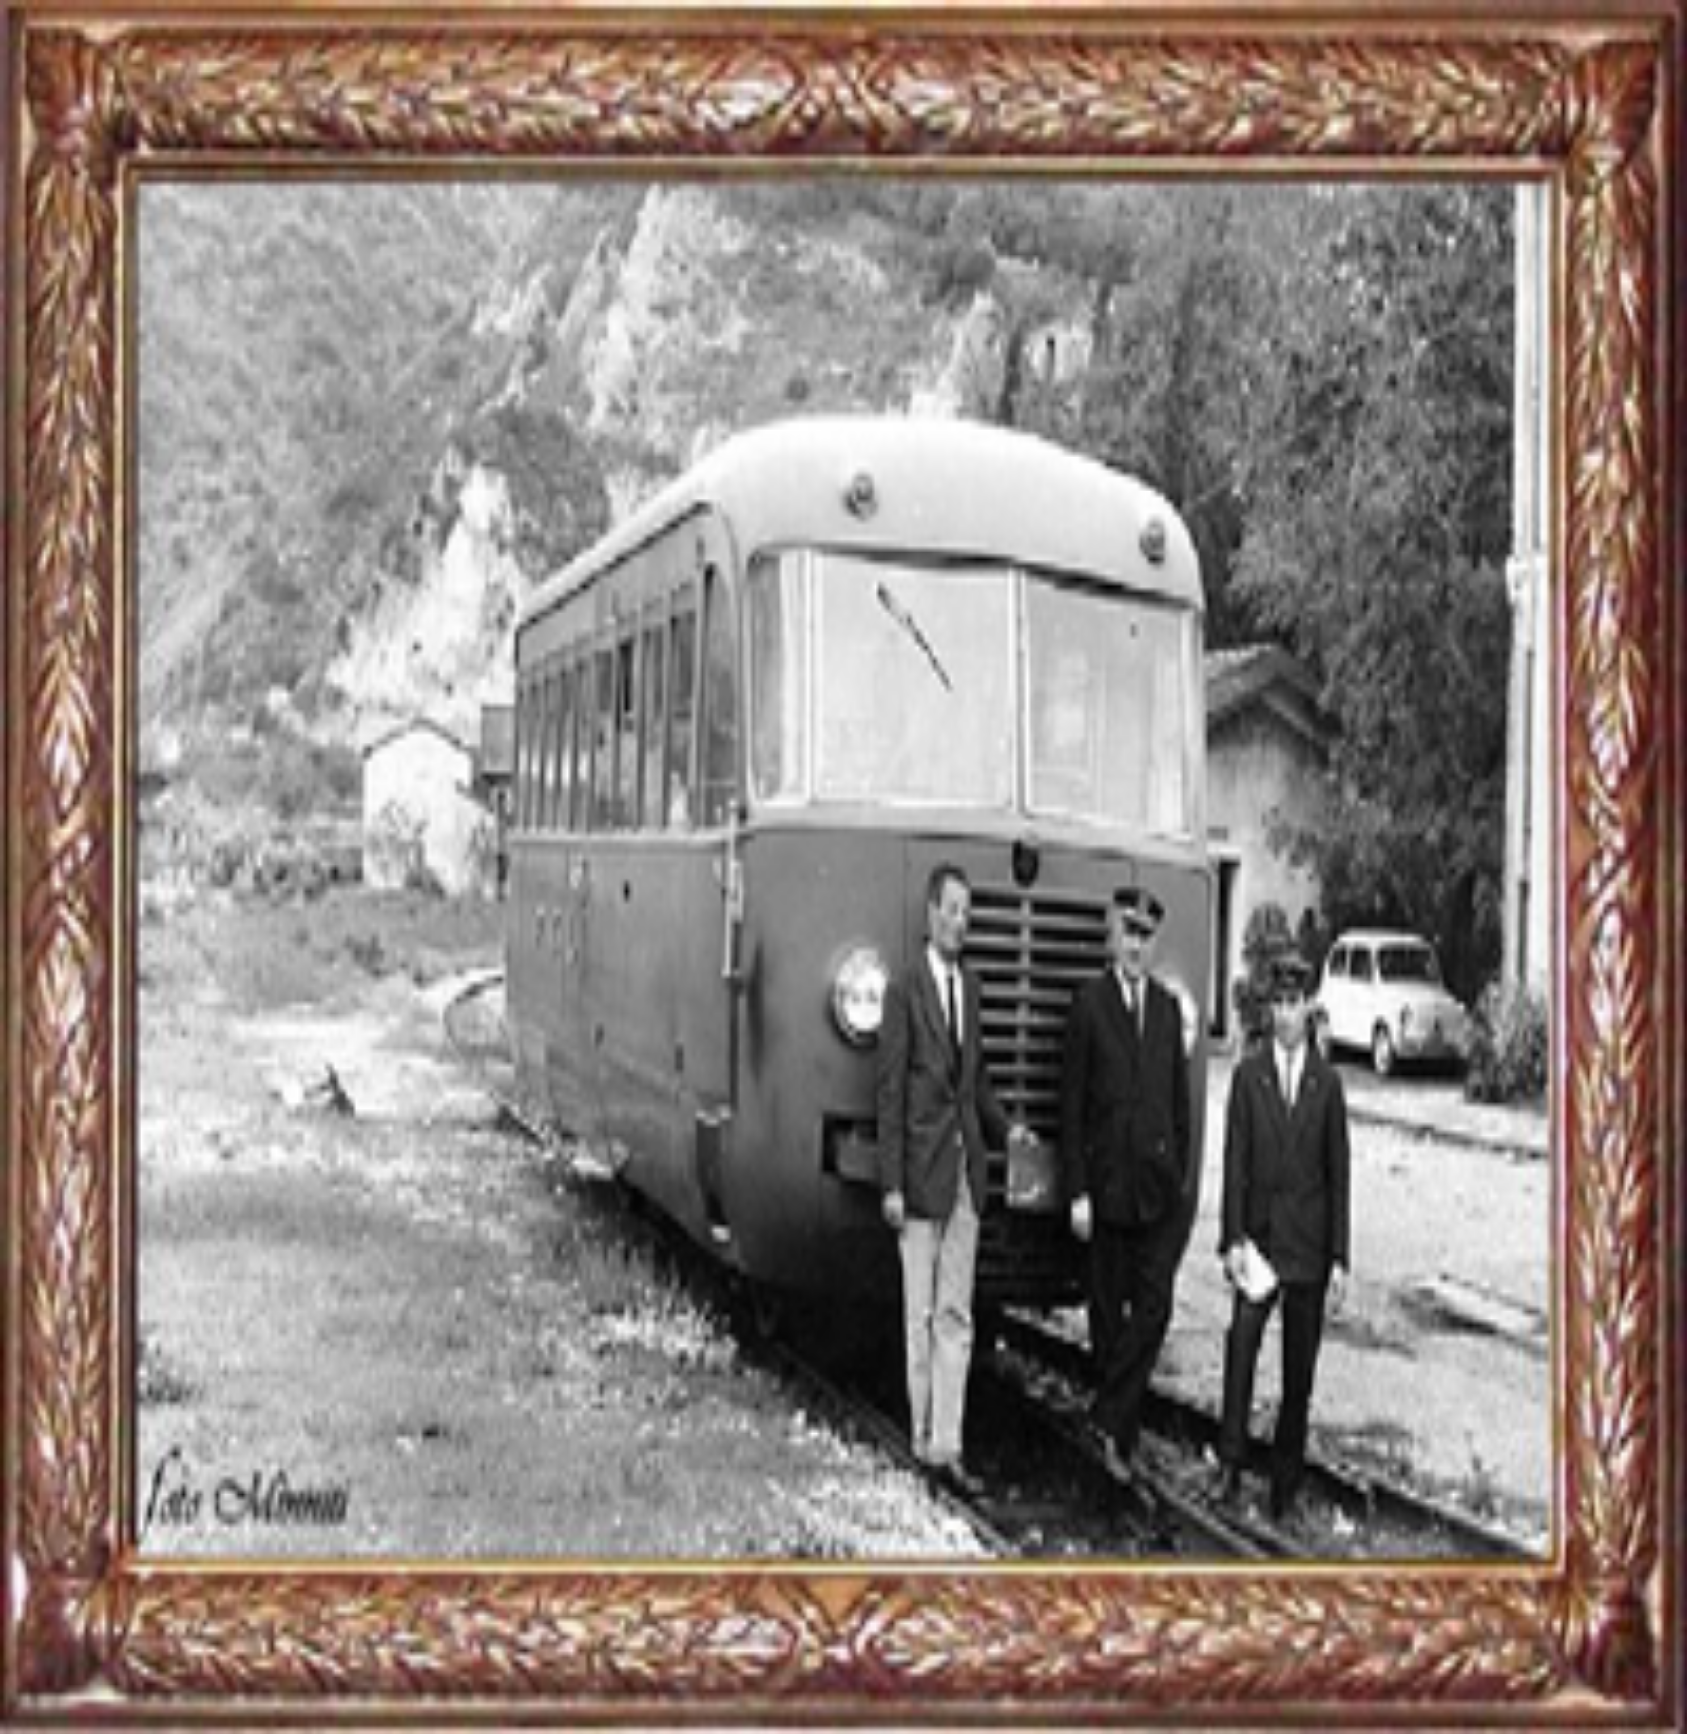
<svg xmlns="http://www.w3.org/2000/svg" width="1687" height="1734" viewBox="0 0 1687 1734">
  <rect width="100%" height="100%" fill="#ffffff"/>
  <image x="0" y="0" width="1687" height="1734" href="img1.png"/>
</svg>
